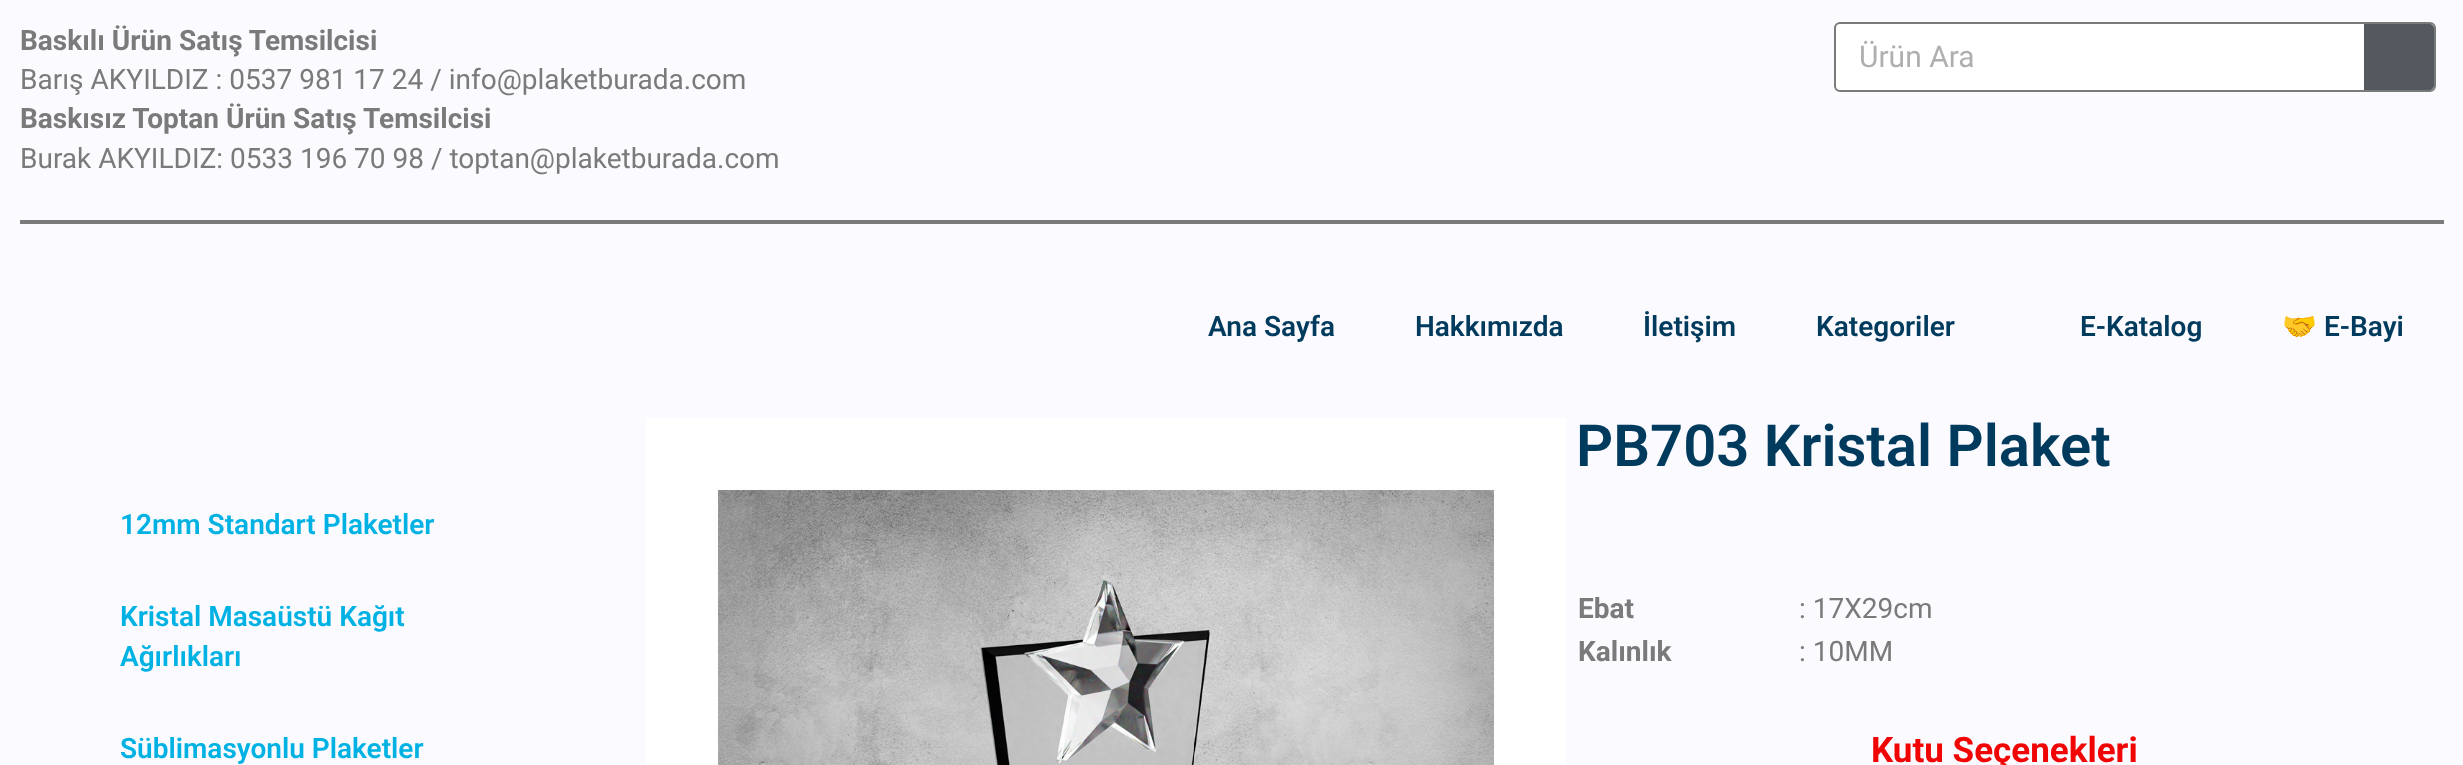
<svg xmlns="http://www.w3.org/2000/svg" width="2463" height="765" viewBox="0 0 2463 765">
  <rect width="100%" height="100%" fill="#fafaff"/>
  <text x="20" y="50" font-family="Roboto" font-size="28" font-weight="bold" fill="#7a7a7a">Baskılı Ürün Satış Temsilcisi</text>
  <text x="20" y="89" font-family="Roboto" font-size="28" fill="#7a7a7a">Barış AKYILDIZ : 0537 981 17 24 / info@plaketburada.com</text>
  <text x="20" y="128" font-family="Roboto" font-size="28" font-weight="bold" fill="#7a7a7a">Baskısız Toptan Ürün Satış Temsilcisi</text>
  <text x="20" y="168" font-family="Roboto" font-size="28" fill="#7a7a7a">Burak AKYILDIZ: 0533 196 70 98 / toptan@plaketburada.com</text>
  <rect x="1835" y="23" width="600" height="68" rx="5" fill="#ffffff" stroke="#7a7a7a" stroke-width="2"/>
  <text x="1859" y="67" font-family="Roboto" font-size="30" fill="#afafaf">Ürün Ara</text>
  <path d="M2364 24H2430C2432 24 2434 26 2434 28V86C2434 88 2432 90 2430 90H2364Z" fill="#54595f"/>
  <rect x="20" y="220" width="2424" height="4" fill="#7a7a7a"/>
  <text x="1208" y="336" font-family="Roboto" font-size="28" font-weight="600" fill="#003a5d">Ana Sayfa</text>
  <text x="1415" y="336" font-family="Roboto" font-size="28" font-weight="600" fill="#003a5d">Hakkımızda</text>
  <text x="1643" y="336" font-family="Roboto" font-size="28" font-weight="600" fill="#003a5d">İletişim</text>
  <text x="1816" y="336" font-family="Roboto" font-size="28" font-weight="600" fill="#003a5d">Kategoriler</text>
  <text x="2080" y="336" font-family="Roboto" font-size="28" font-weight="600" fill="#003a5d">E-Katalog</text>
  <text x="2282" y="336" font-family="Noto Color Emoji" font-size="28" font-weight="bold" fill="#003a5d">🤝</text>
  <text x="2324" y="336" font-family="Roboto" font-size="28" font-weight="600" fill="#003a5d">E-Bayi</text>
  <text x="120" y="534" font-family="Roboto" font-size="28" font-weight="600" fill="#00b2e3">12mm Standart Plaketler</text>
  <text x="120" y="626" font-family="Roboto" font-size="28" font-weight="600" fill="#00b2e3">Kristal Masaüstü Kağıt</text>
  <text x="120" y="666" font-family="Roboto" font-size="28" font-weight="600" fill="#00b2e3">Ağırlıkları</text>
  <text x="120" y="758" font-family="Roboto" font-size="28" font-weight="600" fill="#00b2e3">Süblimasyonlu Plaketler</text>
  <image x="646" y="418" width="920" height="347" href="img1.png"/>
  <text x="1576" y="466" font-family="Roboto" font-size="58" font-weight="600" fill="#003a5d">PB703 Kristal Plaket</text>
  <text x="1578" y="618" font-family="Roboto" font-size="28" font-weight="bold" fill="#7a7a7a">Ebat</text>
  <text x="1799" y="618" font-family="Roboto" font-size="28" fill="#7a7a7a">: 17X29cm</text>
  <text x="1578" y="661" font-family="Roboto" font-size="28" font-weight="bold" fill="#7a7a7a">Kalınlık</text>
  <text x="1799" y="661" font-family="Roboto" font-size="28" fill="#7a7a7a">: 10MM</text>
  <text x="1871" y="762" font-family="Roboto" font-size="35" font-weight="bold" fill="#f00404">Kutu Seçenekleri</text>
</svg>
